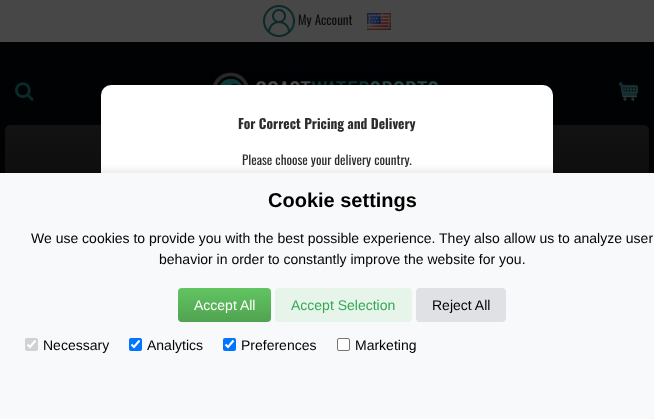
<svg xmlns="http://www.w3.org/2000/svg" width="654" height="419" viewBox="0 0 654 419">
  <defs>
    <linearGradient id="g1" gradientUnits="userSpaceOnUse" x1="327" y1="125" x2="327" y2="175"><stop offset="0" stop-color="#121212"/><stop offset="1" stop-color="#0e0e0e"/></linearGradient>
    <filter id="blur1" x="-50%" y="-200%" width="200%" height="500%"><feGaussianBlur stdDeviation="5"/></filter>
    <linearGradient id="g2" gradientUnits="userSpaceOnUse" x1="225" y1="288" x2="225" y2="322"><stop offset="0" stop-color="#62c462"/><stop offset="1" stop-color="#51a351"/></linearGradient>
  </defs>
  <rect width="100%" height="100%" fill="#474747"/>
  <image x="263" y="5" width="32" height="32" href="img1.png"/>
  <text x="298" y="25" font-family="Oswald" font-size="13" fill="#0d0d0d">My Account</text>
  <image x="367" y="13" width="24" height="17" href="img2.png"/>
  <rect x="0" y="42" width="654" height="131" fill="#000204"/>
  <rect x="5" y="125" width="644" height="50" rx="5" fill="url(#g1)"/>
  <image x="210" y="72" width="230" height="13" href="img3.png"/>
  <image x="15" y="82" width="19" height="19" href="img4.png"/>
  <image x="619" y="82" width="19" height="19" href="img5.png"/>
  <rect x="101" y="85" width="452" height="249" rx="10" fill="#ffffff"/>
  <rect x="0" y="171" width="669" height="246" fill="#000000" fill-opacity="0.1" filter="url(#blur1)"/>
  <rect x="0" y="173" width="654" height="246" fill="#f8f9fa"/>
  <text x="268" y="207" font-family="Liberation Sans" font-size="20" font-weight="bold" fill="#000000">Cookie settings</text>
  <text x="31" y="243" font-family="Liberation Sans" font-size="14" fill="#000000">We use cookies to provide you with the best possible experience. They also allow us to analyze user</text>
  <text x="159" y="264" font-family="Liberation Sans" font-size="14" fill="#000000">behavior in order to constantly improve the website for you.</text>
  <rect x="178" y="288" width="93" height="34" rx="4" fill="url(#g2)"/>
  <text x="194" y="310" font-family="Liberation Sans" font-size="14" fill="#ffffff">Accept All</text>
  <rect x="275" y="288" width="137" height="34" rx="4" fill="#e6f4ea"/>
  <text x="291" y="310" font-family="Liberation Sans" font-size="14" fill="#34a853">Accept Selection</text>
  <rect x="416" y="288" width="90" height="34" rx="4" fill="#dfe1e5"/>
  <text x="432" y="310" font-family="Liberation Sans" font-size="14" fill="#000000">Reject All</text>
  <rect x="25" y="338" width="13" height="13" rx="2" fill="#d1d2d2"/>
  <path d="M27.5 344.5L30 347L35.5 340.5" fill="none" stroke="#ffffff" stroke-width="2.1"/>
  <text x="43" y="350" font-family="Liberation Sans" font-size="14" fill="#000000">Necessary</text>
  <rect x="129" y="338" width="13" height="13" rx="2" fill="#0075ff"/>
  <path d="M131.5 344.5L134 347L139.5 340.5" fill="none" stroke="#ffffff" stroke-width="2.1"/>
  <text x="147" y="350" font-family="Liberation Sans" font-size="14" fill="#000000">Analytics</text>
  <rect x="223" y="338" width="13" height="13" rx="2" fill="#0075ff"/>
  <path d="M225.5 344.5L228 347L233.5 340.5" fill="none" stroke="#ffffff" stroke-width="2.1"/>
  <text x="241" y="350" font-family="Liberation Sans" font-size="14" fill="#000000">Preferences</text>
  <rect x="337.5" y="338.5" width="12" height="12" rx="1.5" fill="#ffffff" stroke="#767676"/>
  <text x="355" y="350" font-family="Liberation Sans" font-size="14" fill="#000000">Marketing</text>
  <text x="238" y="129" font-family="Oswald" font-size="13.5" font-weight="bold" fill="#2c2c2c">For Correct Pricing and Delivery</text>
  <text x="242" y="165" font-family="Oswald" font-size="13" fill="#2c2c2c">Please choose your delivery country.</text>
  <rect x="652" y="417" width="2" height="2" fill="#f5f5f5"/>
</svg>
